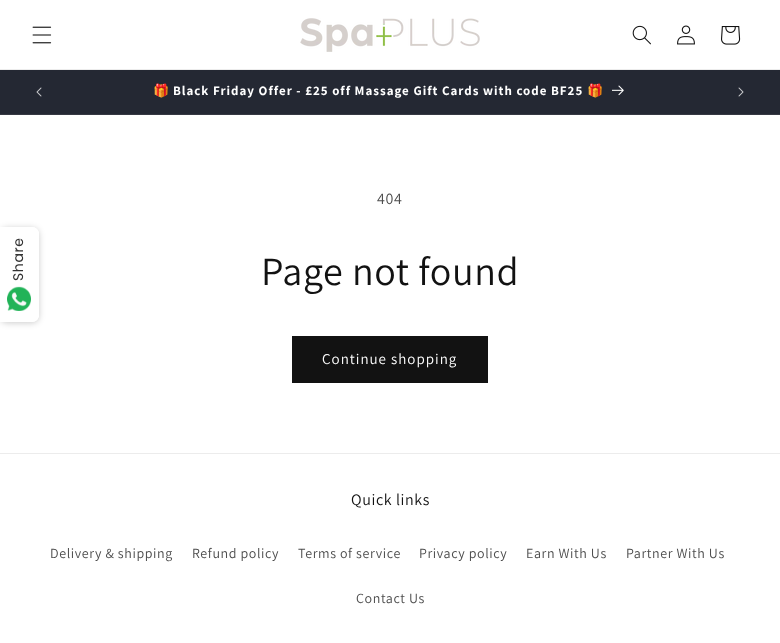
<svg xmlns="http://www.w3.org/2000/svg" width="780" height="643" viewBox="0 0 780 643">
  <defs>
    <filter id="blur1" x="-50%" y="-200%" width="200%" height="500%"><feGaussianBlur stdDeviation="3"/></filter>
  </defs>
  <rect width="100%" height="100%" fill="#ffffff"/>
  <rect x="0" y="69" width="780" height="1" fill="#ececec"/>
  <image x="32" y="26" width="20" height="18" href="img1.png"/>
  <image x="300" y="18" width="180" height="34" href="img2.png"/>
  <image x="632" y="25" width="19" height="20" href="img3.png"/>
  <image x="677" y="25" width="18" height="20" href="img4.png"/>
  <image x="721" y="26" width="20" height="19" href="img5.png"/>
  <rect x="0" y="70" width="780" height="44" fill="#242833"/>
  <rect x="0" y="114" width="780" height="1" fill="#363943"/>
  <image x="36" y="87" width="6" height="10" href="img6.png"/>
  <text x="153" y="95" font-family="Noto Color Emoji" font-size="13" font-weight="bold" letter-spacing="1" fill="#ffffff">🎁</text>
  <text x="173" y="95" font-family="Assistant" font-size="13" font-weight="bold" letter-spacing="1" fill="#ffffff">Black Friday Offer - £25 off Massage Gift Cards with code BF25</text>
  <text x="587" y="95" font-family="Noto Color Emoji" font-size="13" font-weight="bold" letter-spacing="1" fill="#ffffff">🎁</text>
  <image x="612" y="85" width="12" height="11" href="img7.png"/>
  <image x="738" y="87" width="6" height="10" href="img8.png"/>
  <rect x="0" y="228" width="39" height="95" rx="7" fill="#1b1b1b" fill-opacity="0.2" filter="url(#blur1)"/>
  <path d="M0 227H32C36 227 39 230 39 234V315C39 319 36 322 32 322H0Z" fill="#ffffff"/>
  <path d="M0 227H32C36 227 39 230 39 234V315C39 319 36 322 32 322H0ZM0 228H32C35 228 38 231 38 234V315C38 318 35 321 32 321H0Z" fill="#ffffff" fill-rule="evenodd"/>
  <text x="23" y="281" transform="rotate(-90 23 281)" font-family="Poppins" font-size="14" letter-spacing="0.6" fill="#333333">Share</text>
  <image x="7" y="286" width="24" height="25" href="img9.png"/>
  <text x="377" y="204" font-family="Assistant" font-size="16" letter-spacing="0.6" fill="#4d4d4d">404</text>
  <text x="261" y="285" font-family="Assistant" font-size="40" letter-spacing="0.6" fill="#121212">Page not found</text>
  <rect x="292" y="336" width="196" height="47" fill="#121212"/>
  <text x="322" y="364" font-family="Assistant" font-size="15" letter-spacing="1" fill="#ffffff">Continue shopping</text>
  <rect x="0" y="453" width="780" height="1" fill="#ececec"/>
  <text x="351" y="505" font-family="Assistant" font-size="16" letter-spacing="0.6" fill="#121212">Quick links</text>
  <text x="50" y="558" font-family="Assistant" font-size="14" letter-spacing="0.6" fill="#4d4d4d">Delivery &amp; shipping</text>
  <text x="192" y="558" font-family="Assistant" font-size="14" letter-spacing="0.6" fill="#4d4d4d">Refund policy</text>
  <text x="298" y="558" font-family="Assistant" font-size="14" letter-spacing="0.6" fill="#4d4d4d">Terms of service</text>
  <text x="419" y="558" font-family="Assistant" font-size="14" letter-spacing="0.6" fill="#4d4d4d">Privacy policy</text>
  <text x="526" y="558" font-family="Assistant" font-size="14" letter-spacing="0.6" fill="#4d4d4d">Earn With Us</text>
  <text x="626" y="558" font-family="Assistant" font-size="14" letter-spacing="0.6" fill="#4d4d4d">Partner With Us</text>
  <text x="356" y="603" font-family="Assistant" font-size="14" letter-spacing="0.6" fill="#4d4d4d">Contact Us</text>
</svg>
